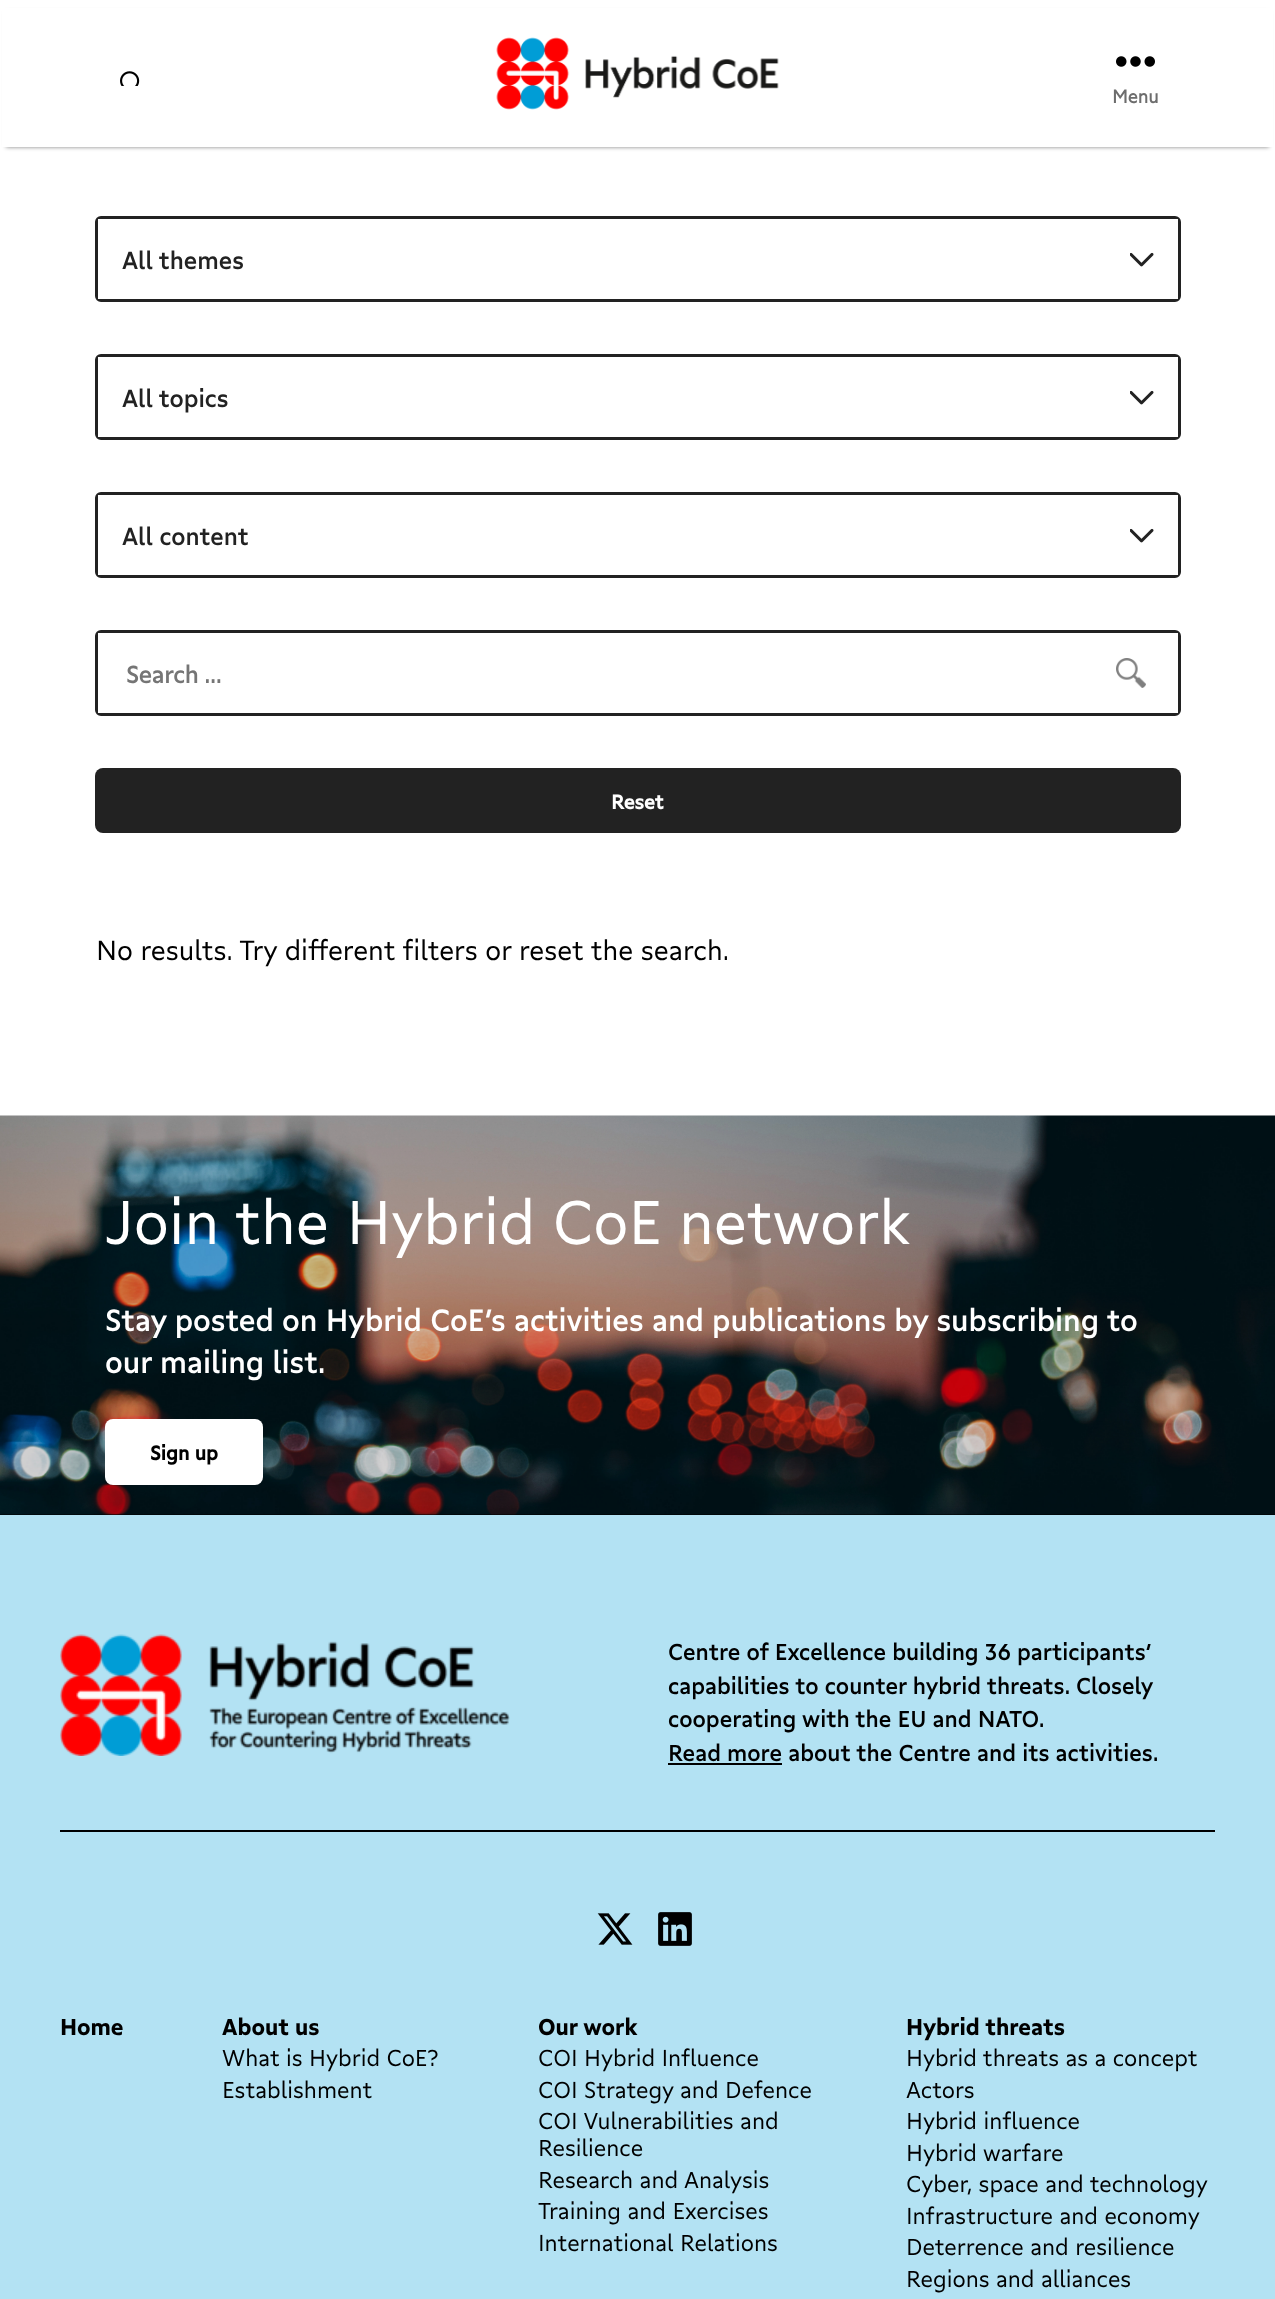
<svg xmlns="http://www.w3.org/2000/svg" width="1275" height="2299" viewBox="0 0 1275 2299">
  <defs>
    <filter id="blur1" x="-50%" y="-200%" width="200%" height="500%"><feGaussianBlur stdDeviation="2"/></filter>
  </defs>
  <rect width="100%" height="100%" fill="#ffffff"/>
  <rect x="6" y="12" width="1263" height="135" fill="#000000" fill-opacity="0.5" filter="url(#blur1)"/>
  <rect x="2" y="8" width="1271" height="139" fill="#ffffff"/>
  <image x="120" y="71" width="20" height="15" href="img1.png"/>
  <image x="496" y="37" width="283" height="73" href="img2.png"/>
  <image x="1116" y="56" width="39" height="11" href="img3.png"/>
  <text x="1112" y="103" font-family="'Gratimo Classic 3'" font-size="18" font-weight="bold" fill="#6d6d6d">Menu</text>
  <rect x="96.5" y="217.5" width="1083" height="83" rx="4.5" fill="none" stroke="#222222" stroke-width="3"/>
  <rect x="98" y="219" width="1080" height="80" fill="#ffffff"/>
  <image x="1130" y="252" width="24" height="15" href="img4.png"/>
  <text x="122" y="269" font-family="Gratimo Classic" font-size="24" font-weight="500" fill="#222222">All themes</text>
  <rect x="96.5" y="355.5" width="1083" height="83" rx="4.5" fill="none" stroke="#222222" stroke-width="3"/>
  <rect x="98" y="357" width="1080" height="80" fill="#ffffff"/>
  <image x="1130" y="390" width="24" height="15" href="img4.png"/>
  <text x="122" y="407" font-family="Gratimo Classic" font-size="24" font-weight="500" fill="#222222">All topics</text>
  <rect x="96.5" y="493.5" width="1083" height="83" rx="4.5" fill="none" stroke="#222222" stroke-width="3"/>
  <rect x="98" y="495" width="1080" height="80" fill="#ffffff"/>
  <image x="1130" y="528" width="24" height="15" href="img4.png"/>
  <text x="122" y="545" font-family="Gratimo Classic" font-size="24" font-weight="500" fill="#222222">All content</text>
  <rect x="96.5" y="631.5" width="1083" height="83" rx="4.5" fill="none" stroke="#222222" stroke-width="3"/>
  <rect x="98" y="633" width="1080" height="80" fill="#ffffff"/>
  <text x="126" y="683" font-family="Gratimo Classic" font-size="24" font-weight="500" letter-spacing="-0.4" fill="#757575">Search ...</text>
  <image x="1116" y="658" width="30" height="30" href="img5.png"/>
  <rect x="95" y="768" width="1086" height="65" rx="8" fill="#222222"/>
  <text x="611" y="809" font-family="Gratimo Classic" font-size="19.5" font-weight="bold" fill="#ffffff">Reset</text>
  <text x="96" y="960" font-family="Gratimo Classic" font-size="27" fill="#000000">No results. Try different filters or reset the search.</text>
  <rect x="0" y="1514" width="1275" height="1" fill="#000000"/>
  <image x="0" y="1115" width="1275" height="400" href="img6.png"/>
  <text x="105" y="1244" font-family="Gratimo Classic" font-size="60" fill="#ffffff">Join the Hybrid CoE network</text>
  <text x="105" y="1331" font-family="Gratimo Classic" font-size="30" font-weight="500" fill="#ffffff">Stay posted on Hybrid CoE’s activities and publications by subscribing to</text>
  <text x="105" y="1373" font-family="Gratimo Classic" font-size="30" font-weight="500" fill="#ffffff">our mailing list.</text>
  <rect x="105" y="1419" width="158" height="66" rx="8" fill="#ffffff"/>
  <text x="150" y="1460" font-family="Gratimo Classic" font-size="19.5" font-weight="bold" fill="#000000">Sign up</text>
  <rect x="0" y="1515" width="1275" height="784" fill="#b3e2f3"/>
  <image x="60" y="1634" width="450" height="122" href="img7.png"/>
  <text x="668" y="1660" font-family="Gratimo Classic" font-size="22.5" font-weight="500" fill="#000000">Centre of Excellence building 36 participants’</text>
  <text x="668" y="1694" font-family="Gratimo Classic" font-size="22.5" font-weight="500" fill="#000000">capabilities to counter hybrid threats. Closely</text>
  <text x="668" y="1727" font-family="Gratimo Classic" font-size="22.5" font-weight="500" fill="#000000">cooperating with the EU and NATO.</text>
  <text x="668" y="1761" font-family="Gratimo Classic" font-size="22.5" font-weight="500" fill="#000000">Read more about the Centre and its activities.</text>
  <rect x="668" y="1763" width="114" height="2" fill="#000000"/>
  <rect x="60" y="1830" width="1155" height="2" fill="#000000"/>
  <image x="597" y="1913" width="36" height="32" href="img8.png"/>
  <image x="658" y="1912" width="34" height="34" href="img9.png"/>
  <text x="60" y="2035" font-family="'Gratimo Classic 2'" font-size="22.5" font-weight="bold" fill="#000000">Home</text>
  <text x="222" y="2035" font-family="'Gratimo Classic 2'" font-size="22.5" font-weight="bold" fill="#000000">About us</text>
  <text x="222" y="2066" font-family="Gratimo Classic" font-size="22.5" fill="#000000">What is Hybrid CoE?</text>
  <text x="222" y="2098" font-family="Gratimo Classic" font-size="22.5" fill="#000000">Establishment</text>
  <text x="538" y="2035" font-family="'Gratimo Classic 2'" font-size="22.5" font-weight="bold" fill="#000000">Our work</text>
  <text x="538" y="2066" font-family="Gratimo Classic" font-size="22.5" fill="#000000">COI Hybrid Influence</text>
  <text x="538" y="2098" font-family="Gratimo Classic" font-size="22.5" fill="#000000">COI Strategy and Defence</text>
  <text x="538" y="2129" font-family="Gratimo Classic" font-size="22.5" fill="#000000">COI Vulnerabilities and</text>
  <text x="538" y="2156" font-family="Gratimo Classic" font-size="22.5" fill="#000000">Resilience</text>
  <text x="538" y="2188" font-family="Gratimo Classic" font-size="22.5" fill="#000000">Research and Analysis</text>
  <text x="538" y="2219" font-family="Gratimo Classic" font-size="22.5" fill="#000000">Training and Exercises</text>
  <text x="538" y="2251" font-family="Gratimo Classic" font-size="22.5" fill="#000000">International Relations</text>
  <text x="906" y="2035" font-family="'Gratimo Classic 2'" font-size="22.5" font-weight="bold" fill="#000000">Hybrid threats</text>
  <text x="906" y="2066" font-family="Gratimo Classic" font-size="22.5" fill="#000000">Hybrid threats as a concept</text>
  <text x="906" y="2098" font-family="Gratimo Classic" font-size="22.5" fill="#000000">Actors</text>
  <text x="906" y="2129" font-family="Gratimo Classic" font-size="22.5" fill="#000000">Hybrid influence</text>
  <text x="906" y="2161" font-family="Gratimo Classic" font-size="22.5" fill="#000000">Hybrid warfare</text>
  <text x="906" y="2192" font-family="Gratimo Classic" font-size="22.5" fill="#000000">Cyber, space and technology</text>
  <text x="906" y="2224" font-family="Gratimo Classic" font-size="22.5" fill="#000000">Infrastructure and economy</text>
  <text x="906" y="2255" font-family="Gratimo Classic" font-size="22.5" fill="#000000">Deterrence and resilience</text>
  <text x="906" y="2287" font-family="Gratimo Classic" font-size="22.5" fill="#000000">Regions and alliances</text>
</svg>
